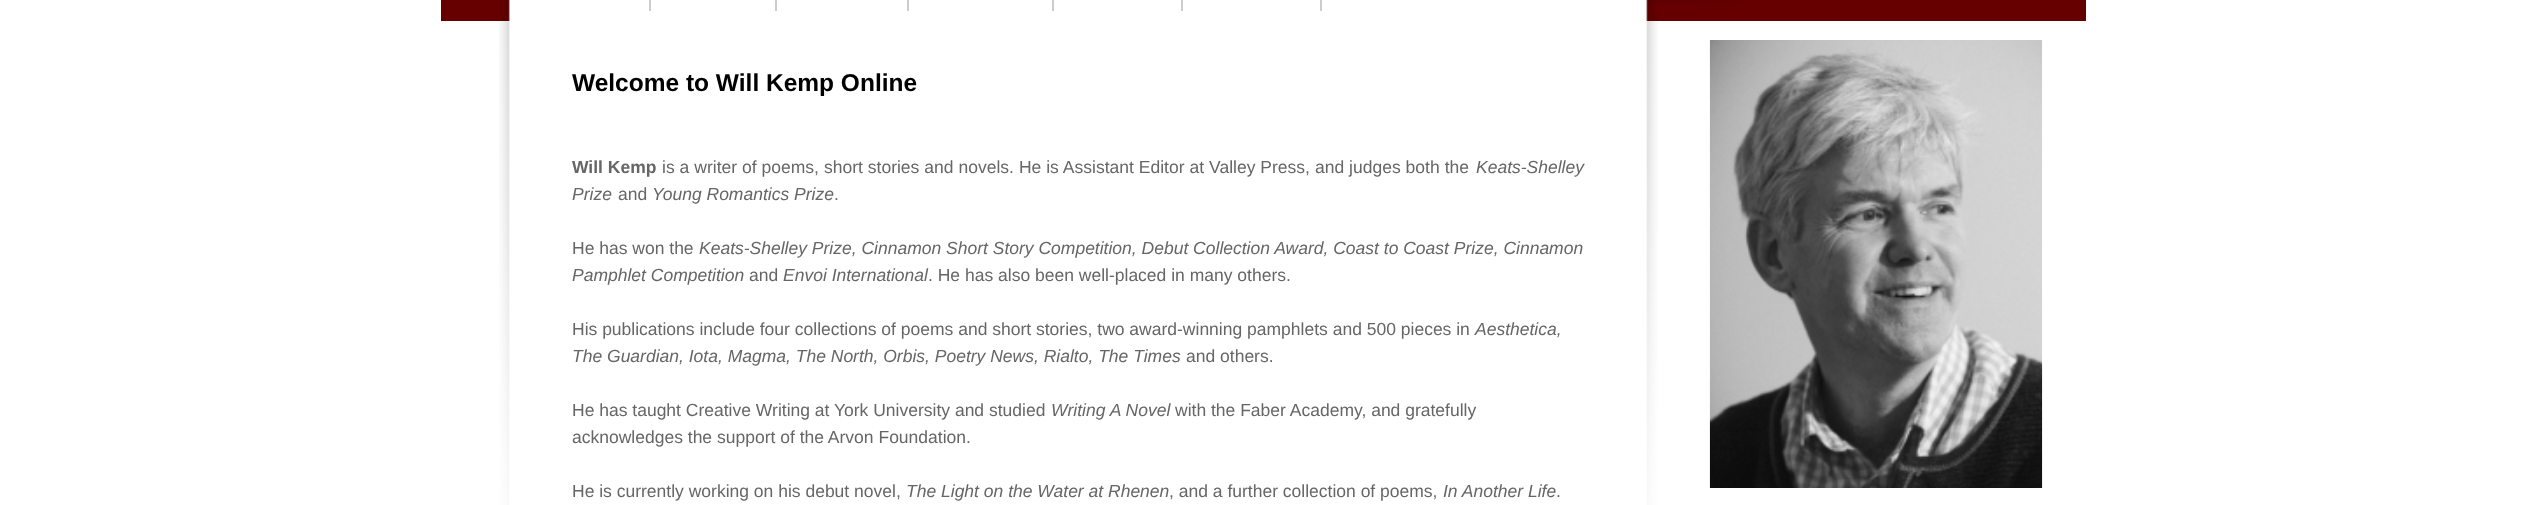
<svg xmlns="http://www.w3.org/2000/svg" width="2527" height="505" viewBox="0 0 2527 505">
  <rect width="100%" height="100%" fill="#ffffff"/>
  <rect x="441" y="0" width="1645" height="21" fill="#660000"/>
  <image x="1646" y="0" width="93" height="5" href="img1.png"/>
  <image x="499" y="0" width="1159" height="505" href="img2.png"/>
  <rect x="649" y="0" width="2" height="11" fill="#cccccc"/>
  <rect x="775" y="0" width="2" height="11" fill="#cccccc"/>
  <rect x="907" y="0" width="2" height="11" fill="#cccccc"/>
  <rect x="1052" y="0" width="2" height="11" fill="#cccccc"/>
  <rect x="1181" y="0" width="2" height="11" fill="#cccccc"/>
  <rect x="1320" y="0" width="2" height="11" fill="#cccccc"/>
  <text x="572" y="91" font-family="Liberation Sans" font-size="24.5" font-weight="bold" fill="#000000">Welcome to Will Kemp Online</text>
  <text x="572" y="173" font-family="Liberation Sans" font-size="17.5" font-weight="bold" fill="#666666">Will Kemp</text>
  <text x="662" y="173" word-spacing="0.1" font-family="Liberation Sans" font-size="17.5" fill="#666666">is a writer of poems, short stories and novels. He is Assistant Editor at Valley Press, and judges both the</text>
  <text x="1476" y="173" font-family="Liberation Sans" font-size="17.5" font-style="italic" fill="#666666">Keats-Shelley</text>
  <text x="572" y="200" font-family="Liberation Sans" font-size="17.5" font-style="italic" fill="#666666">Prize</text>
  <text x="618" y="200" font-family="Liberation Sans" font-size="17.5" fill="#666666">and</text>
  <text x="652" y="200" font-family="Liberation Sans" font-size="17.5" font-style="italic" fill="#666666">Young Romantics Prize</text>
  <text x="834" y="200" font-family="Liberation Sans" font-size="17.5" fill="#666666">.</text>
  <text x="572" y="254" font-family="Liberation Sans" font-size="17.5" fill="#666666">He has won the</text>
  <text x="699" y="254" font-family="Liberation Sans" font-size="17.5" font-style="italic" fill="#666666">Keats-Shelley Prize, Cinnamon Short Story Competition, Debut Collection Award, Coast to Coast Prize, Cinnamon</text>
  <text x="572" y="281" font-family="Liberation Sans" font-size="17.5" font-style="italic" fill="#666666">Pamphlet Competition</text>
  <text x="749" y="281" font-family="Liberation Sans" font-size="17.5" fill="#666666">and</text>
  <text x="783" y="281" font-family="Liberation Sans" font-size="17.5" font-style="italic" fill="#666666">Envoi International</text>
  <text x="928" y="281" font-family="Liberation Sans" font-size="17.5" fill="#666666">. He has also been well-placed in many others.</text>
  <text x="572" y="335" font-family="Liberation Sans" font-size="17.5" fill="#666666">His publications include four collections of poems and short stories, two award-winning pamphlets and 500 pieces in</text>
  <text x="1475" y="335" font-family="Liberation Sans" font-size="17.5" font-style="italic" fill="#666666">Aesthetica,</text>
  <text x="572" y="362" font-family="Liberation Sans" font-size="17.5" font-style="italic" fill="#666666">The Guardian, Iota, Magma, The North, Orbis, Poetry News, Rialto, The Times</text>
  <text x="1186" y="362" font-family="Liberation Sans" font-size="17.5" fill="#666666">and others.</text>
  <text x="572" y="416" font-family="Liberation Sans" font-size="17.5" fill="#666666">He has taught Creative Writing at York University and studied</text>
  <text x="1051" y="416" font-family="Liberation Sans" font-size="17.5" font-style="italic" fill="#666666">Writing A Novel</text>
  <text x="1175" y="416" font-family="Liberation Sans" font-size="17.5" fill="#666666">with the Faber Academy, and gratefully</text>
  <text x="572" y="443" font-family="Liberation Sans" font-size="17.5" fill="#666666">acknowledges the support of the Arvon Foundation.</text>
  <text x="572" y="497" font-family="Liberation Sans" font-size="17.5" fill="#666666">He is currently working on his debut novel,</text>
  <text x="906" y="497" font-family="Liberation Sans" font-size="17.5" font-style="italic" fill="#666666">The Light on the Water at Rhenen</text>
  <text x="1169" y="497" font-family="Liberation Sans" font-size="17.5" fill="#666666">, and a further collection of poems,</text>
  <text x="1443" y="497" font-family="Liberation Sans" font-size="17.5" font-style="italic" fill="#666666">In Another Life</text>
  <text x="1556" y="497" font-family="Liberation Sans" font-size="17.5" fill="#666666">.</text>
  <image x="1709" y="40" width="334" height="448" href="img3.png"/>
</svg>
